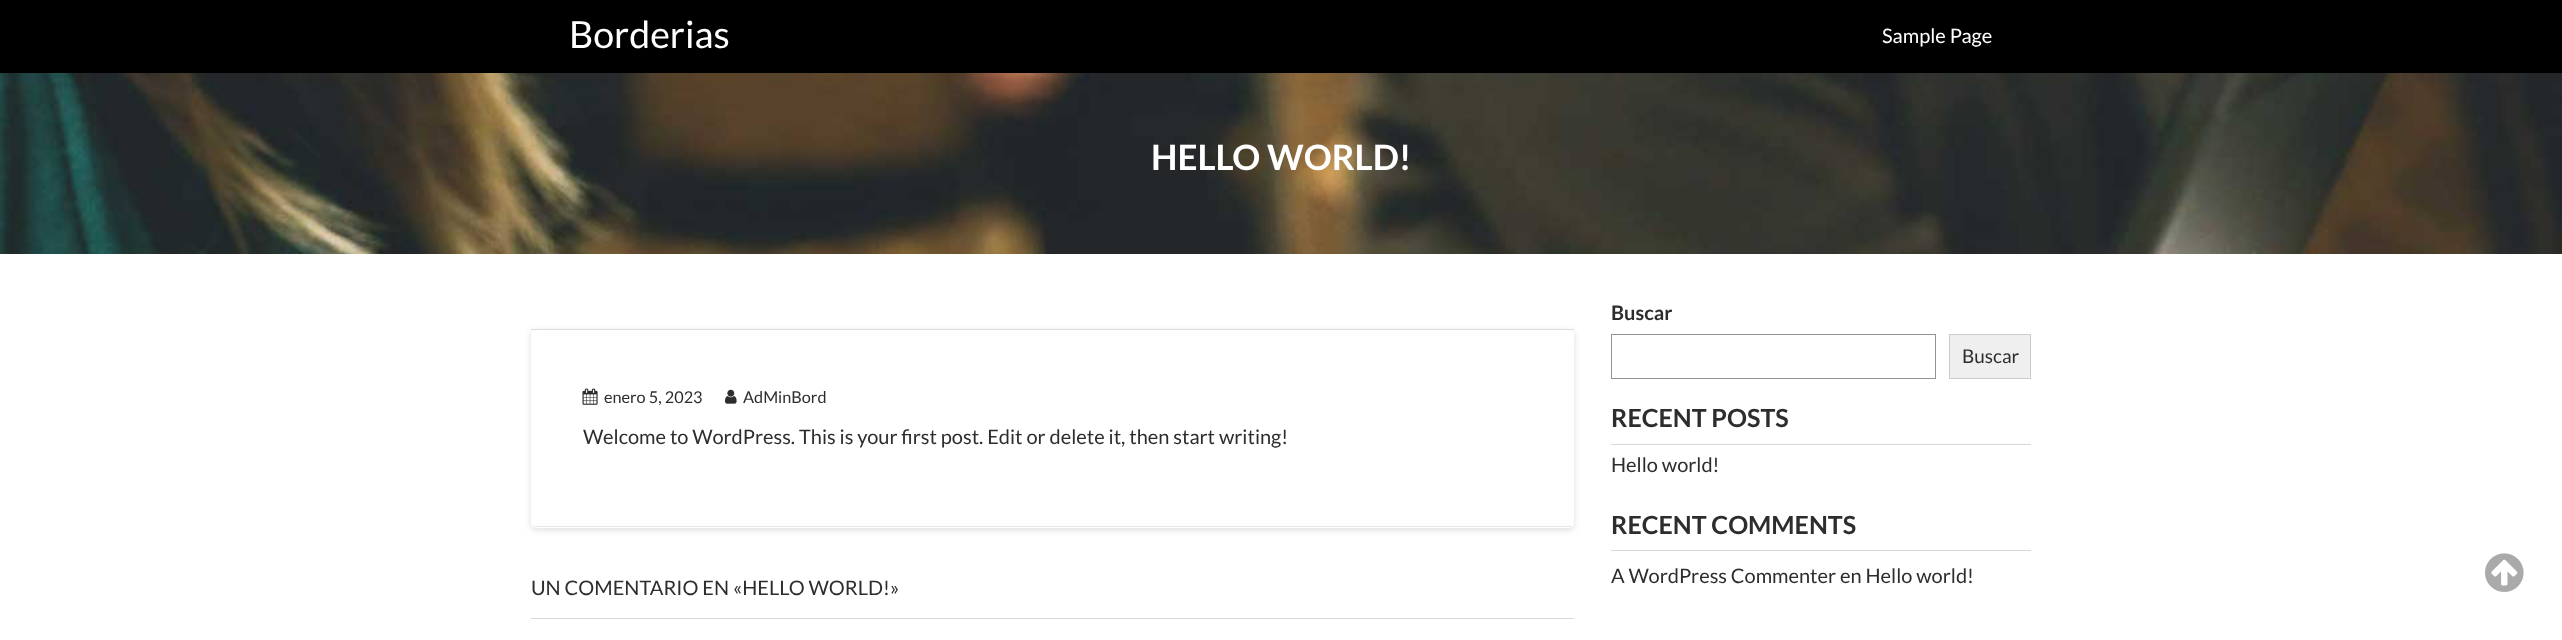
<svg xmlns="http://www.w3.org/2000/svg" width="2562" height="640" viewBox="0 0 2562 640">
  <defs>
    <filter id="blur1" x="-50%" y="-200%" width="200%" height="500%"><feGaussianBlur stdDeviation="3.5"/></filter>
  </defs>
  <rect width="100%" height="100%" fill="#ffffff"/>
  <rect x="0" y="0" width="2562" height="73" fill="#000000"/>
  <text x="569" y="48" font-family="Lato" font-size="37.5" fill="#ffffff">Borderias</text>
  <text x="1882" y="43" font-family="Lato" font-size="20" fill="#ffffff">Sample Page</text>
  <image x="0" y="73" width="2562" height="181" href="img1.png"/>
  <text x="1151" y="170" font-family="Lato" font-size="35" font-weight="bold" fill="#ffffff">HELLO WORLD!</text>
  <rect x="531" y="331" width="1043" height="199" rx="5" fill="#000000" fill-opacity="0.13" filter="url(#blur1)"/>
  <rect x="531" y="329" width="1043" height="199" rx="5" fill="#ffffff"/>
  <rect x="534" y="526" width="1037" height="1" fill="#e5e5e5"/>
  <rect x="531" y="329" width="1043" height="1" fill="#dddddd"/>
  <image x="582" y="388" width="16" height="17" href="img2.png"/>
  <text x="604" y="403" font-family="Lato" font-size="16.25" fill="#2d2d2d">enero 5, 2023</text>
  <image x="725" y="389" width="12" height="15" href="img3.png"/>
  <text x="743" y="403" font-family="Lato" font-size="16.25" fill="#2d2d2d">AdMinBord</text>
  <text x="583" y="444" font-family="Lato" font-size="20" fill="#2d2d2d">Welcome to WordPress. This is your first post. Edit or delete it, then start writing!</text>
  <rect x="531" y="618" width="1043" height="1" fill="#d9d9d9"/>
  <text x="531" y="595" font-family="Lato" font-size="20" fill="#2d2d2d">UN COMENTARIO EN «HELLO WORLD!»</text>
  <text x="1611" y="320" font-family="Lato" font-size="20" font-weight="bold" fill="#2d2d2d">Buscar</text>
  <rect x="1611.5" y="334.5" width="324" height="44" fill="none" stroke="#949494"/>
  <rect x="1949.5" y="334.5" width="81" height="44" fill="#efefef" stroke="#cccccc"/>
  <text x="1962" y="363" font-family="Lato" font-size="19" fill="#2d2d2d">Buscar</text>
  <text x="1611" y="427" font-family="Lato" font-size="25" font-weight="bold" fill="#2d2d2d">RECENT POSTS</text>
  <rect x="1611" y="444" width="420" height="1" fill="#d7d7d7"/>
  <text x="1611" y="472" font-family="Lato" font-size="20" fill="#2d2d2d">Hello world!</text>
  <text x="1611" y="534" font-family="Lato" font-size="25" font-weight="bold" fill="#2d2d2d">RECENT COMMENTS</text>
  <rect x="1611" y="550" width="420" height="1" fill="#d7d7d7"/>
  <text x="1611" y="583" font-family="Lato" font-size="20" fill="#2d2d2d">A WordPress Commenter en Hello world!</text>
  <image x="2485" y="553" width="39" height="39" href="img4.png"/>
</svg>
